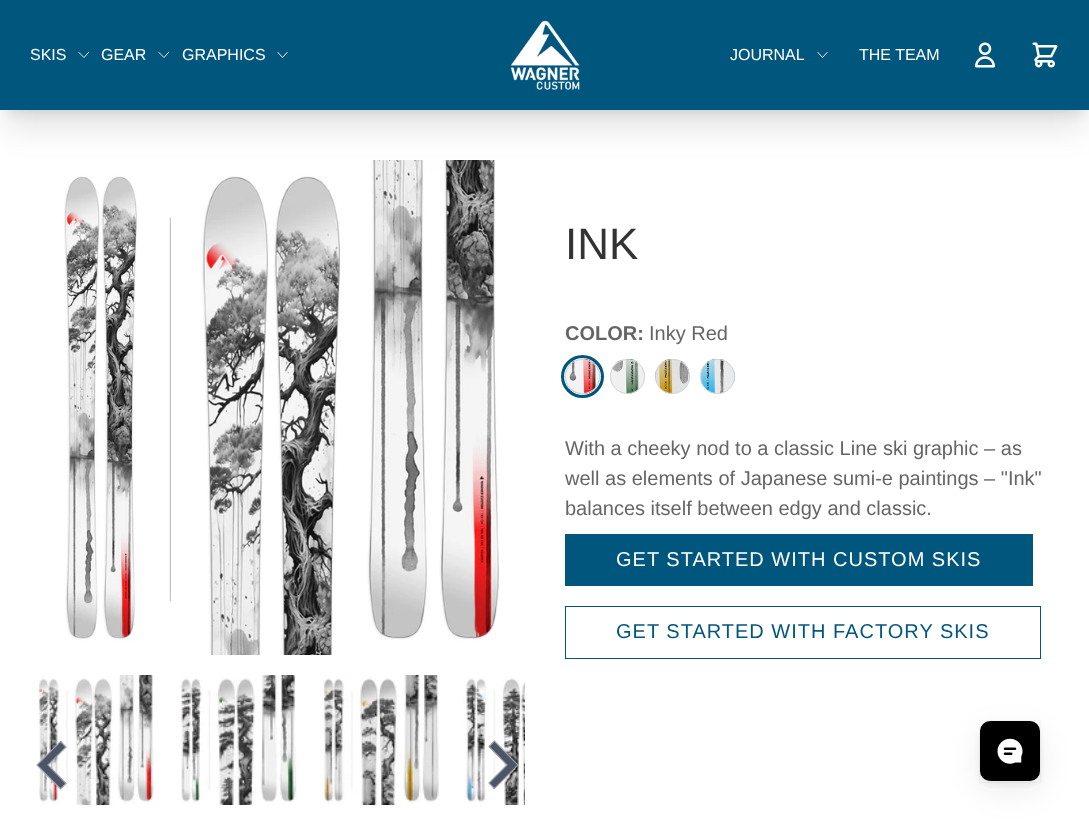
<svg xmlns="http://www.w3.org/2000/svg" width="1089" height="831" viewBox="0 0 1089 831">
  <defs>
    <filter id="blur1" x="-50%" y="-200%" width="200%" height="500%"><feGaussianBlur stdDeviation="6"/></filter>
    <filter id="blur2" x="-50%" y="-200%" width="200%" height="500%"><feGaussianBlur stdDeviation="15.5"/></filter>
    <filter id="blur3" x="-50%" y="-200%" width="200%" height="500%"><feGaussianBlur stdDeviation="15"/></filter>
    <filter id="blur4" x="-50%" y="-200%" width="200%" height="500%"><feGaussianBlur stdDeviation="2.5"/></filter>
  </defs>
  <rect width="100%" height="100%" fill="#ffffff"/>
  <rect x="8" y="18" width="1075" height="95" fill="#000000" fill-opacity="0.1" filter="url(#blur1)"/>
  <image x="63" y="160" width="436" height="495" href="img4.png"/>
  <rect x="6" y="31" width="1078" height="98" fill="#000000" fill-opacity="0.1" filter="url(#blur2)"/>
  <rect x="0" y="0" width="1089" height="110" fill="#00567d"/>
  <text x="30" y="60" font-family="Liberation Sans" font-size="16" fill="#ffffff">SKIS</text>
  <path d="M88.5 52.5L84 57.5L79 52.5" fill="none" stroke="#ffffff" stroke-width="0.9" stroke-linecap="round" stroke-linejoin="round"/>
  <text x="101" y="60" font-family="Liberation Sans" font-size="16" fill="#ffffff">GEAR</text>
  <path d="M168.5 52.5L164 57.5L159 52.5" fill="none" stroke="#ffffff" stroke-width="0.9" stroke-linecap="round" stroke-linejoin="round"/>
  <text x="182" y="60" font-family="Liberation Sans" font-size="16" fill="#ffffff">GRAPHICS</text>
  <path d="M287 52.5L282.5 57.5L278 52.5" fill="none" stroke="#ffffff" stroke-width="0.9" stroke-linecap="round" stroke-linejoin="round"/>
  <image x="510" y="20" width="70" height="70" href="img1.png"/>
  <text x="730" y="60" font-family="Liberation Sans" font-size="16" fill="#ffffff">JOURNAL</text>
  <path d="M827 52.5L822.5 57.5L818 52.5" fill="none" stroke="#ffffff" stroke-width="0.9" stroke-linecap="round" stroke-linejoin="round"/>
  <text x="859" y="60" font-family="Liberation Sans" font-size="16" fill="#ffffff">THE TEAM</text>
  <image x="975" y="42" width="20" height="26" href="img2.png"/>
  <image x="1032" y="42" width="26" height="26" href="img3.png"/>
  <image x="38" y="675" width="117" height="130" href="img5.png"/>
  <image x="179" y="675" width="118" height="130" href="img6.png"/>
  <image x="321" y="675" width="118" height="130" href="img7.png"/>
  <image x="463" y="678" width="62" height="127" href="img8.png"/>
  <path d="M61 789L66 783L48 765L66 747L61 741L37 765Z" fill="#4b5563"/>
  <path d="M60.5 789L66 783.5L48 765L66 747L60.5 741.5L37 765Z" fill="none" stroke="#9ca3af" stroke-width="1.2"/>
  <path d="M494 741L489 747L507 765L489 783L494 789L518 765Z" fill="#4b5563"/>
  <path d="M494.5 741L489 746.5L507 765L489 783L494.5 788.5L518 765Z" fill="none" stroke="#9ca3af" stroke-width="1.2"/>
  <text x="565" y="259" font-family="Liberation Sans" font-size="44" fill="#333333">INK</text>
  <text x="565" y="340" font-family="Liberation Sans" font-size="20" font-weight="bold" fill="#666565">COLOR:</text>
  <text x="649" y="340" font-family="Liberation Sans" font-size="20" fill="#666565">Inky Red</text>
  <circle cx="582.5" cy="376.5" r="19.5" fill="none" stroke="#00567d" stroke-width="4"/>
  <circle cx="582.5" cy="376.5" r="18" fill="none" stroke="#ffffff"/>
  <image x="565" y="358" width="35" height="36" href="img9.png"/>
  <circle cx="582.5" cy="376.5" r="17" fill="none" stroke="#d1d5db"/>
  <image x="610" y="358" width="35" height="36" href="img10.png"/>
  <circle cx="627.5" cy="376.5" r="17" fill="none" stroke="#d1d5db"/>
  <image x="655" y="358" width="35" height="36" href="img11.png"/>
  <circle cx="672.5" cy="376.5" r="17" fill="none" stroke="#d1d5db"/>
  <image x="700" y="359" width="35" height="35" href="img12.png"/>
  <circle cx="717.5" cy="376.5" r="17" fill="none" stroke="#d1d5db"/>
  <text x="565" y="455" font-family="Liberation Sans" font-size="20" fill="#666565">With a cheeky nod to a classic Line ski graphic – as</text>
  <text x="565" y="485" font-family="Liberation Sans" font-size="20" fill="#666565">well as elements of Japanese sumi-e paintings – "Ink"</text>
  <text x="565" y="515" font-family="Liberation Sans" font-size="20" fill="#666565">balances itself between edgy and classic.</text>
  <rect x="565" y="534" width="468" height="52" fill="#00567d"/>
  <text x="616" y="566" font-family="Liberation Sans" font-size="20" letter-spacing="1" fill="#ffffff">GET STARTED WITH CUSTOM SKIS</text>
  <rect x="565.5" y="606.5" width="475" height="52" fill="none" stroke="#00567d"/>
  <text x="616" y="638" font-family="Liberation Sans" font-size="20" letter-spacing="1" fill="#00567d">GET STARTED WITH FACTORY SKIS</text>
  <rect x="980" y="731" width="60" height="60" rx="10" fill="#373f47" fill-opacity="0.08" filter="url(#blur3)"/>
  <rect x="980" y="726" width="60" height="60" rx="10" fill="#373f47" fill-opacity="0.08" filter="url(#blur4)"/>
  <rect x="979.5" y="720.5" width="61" height="62" fill="none" stroke="#373f47" stroke-opacity="0.04"/>
  <rect x="980" y="721" width="60" height="60" rx="10" fill="#000000"/>
  <image x="997" y="738" width="26" height="26" href="img13.png"/>
</svg>
